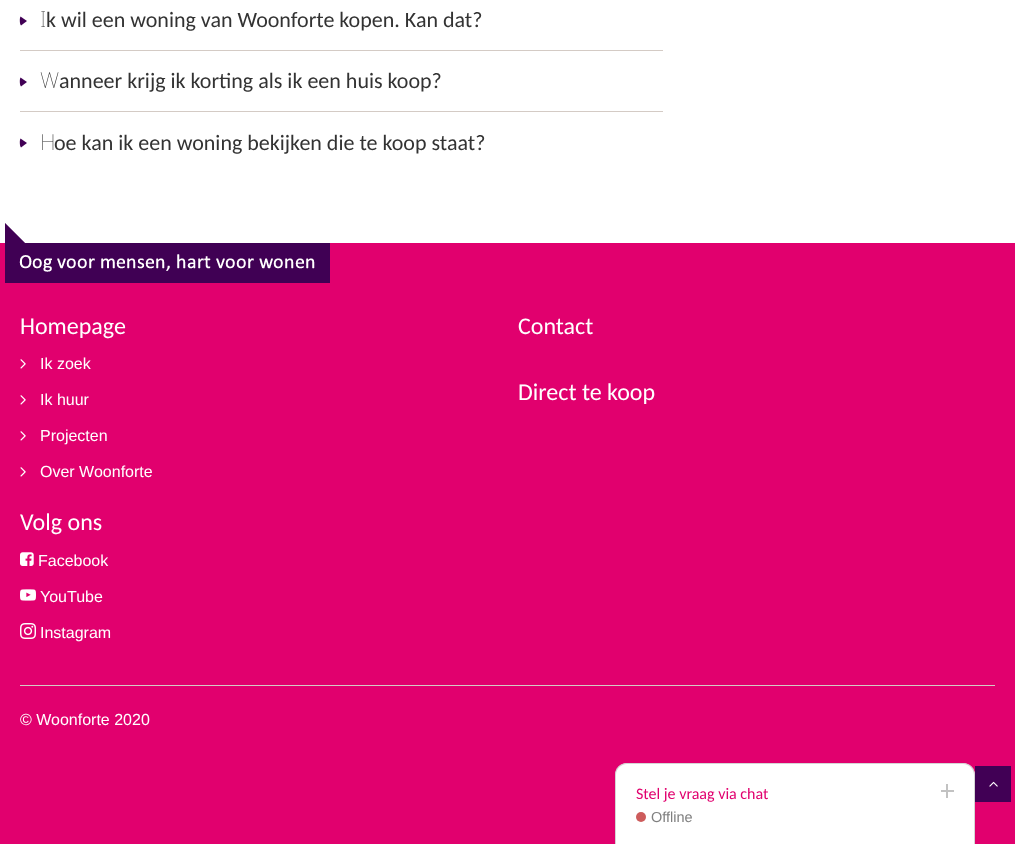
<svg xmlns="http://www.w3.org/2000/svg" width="1015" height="844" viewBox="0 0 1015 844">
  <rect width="100%" height="100%" fill="#ffffff"/>
  <rect x="20" y="50" width="643" height="1" fill="#d4cbc5"/>
  <path d="M27 21L21 25.5C19.5 24.5 19.5 17.5 20.5 16.5Z" fill="#410055"/>
  <text x="40" y="27" font-family="Noto Sans" font-size="22" font-weight="100" fill="#333333">I</text>
  <text x="46" y="27" font-family="Carlito" font-size="22" fill="#333333">k wil een woning van Woonforte kopen. Kan dat?</text>
  <rect x="20" y="111" width="643" height="1" fill="#d4cbc5"/>
  <path d="M27 82L21 86.5C19.5 85.5 19.5 78.5 20.5 77.5Z" fill="#410055"/>
  <text x="40" y="88" font-family="Noto Sans" font-size="22" font-weight="100" fill="#333333">W</text>
  <text x="59" y="88" font-family="Carlito" font-size="22" fill="#333333">anneer krijg ik korting als ik een huis koop?</text>
  <path d="M27 143L21 147.5C19.5 146.5 19.5 139.5 20.5 138.5Z" fill="#410055"/>
  <text x="40" y="150" font-family="Noto Sans" font-size="22" font-weight="100" fill="#333333">H</text>
  <text x="54" y="150" font-family="Carlito" font-size="22" fill="#333333">oe kan ik een woning bekijken die te koop staat?</text>
  <rect x="0" y="243" width="1015" height="601" fill="#e1006e"/>
  <image x="5" y="223" width="325" height="60" href="img1.png"/>
  <text x="20" y="334" font-family="Carlito" font-size="24" fill="#ffffff">Homepage</text>
  <image x="20" y="359" width="6" height="10" href="img2.png"/>
  <text x="40" y="369" font-family="Liberation Sans" font-size="16" fill="#ffffff">Ik zoek</text>
  <image x="20" y="395" width="6" height="10" href="img2.png"/>
  <text x="40" y="405" font-family="Liberation Sans" font-size="16" fill="#ffffff">Ik huur</text>
  <image x="20" y="431" width="6" height="10" href="img2.png"/>
  <text x="40" y="441" font-family="Liberation Sans" font-size="16" fill="#ffffff">Projecten</text>
  <image x="20" y="467" width="6" height="10" href="img2.png"/>
  <text x="40" y="477" font-family="Liberation Sans" font-size="16" fill="#ffffff">Over Woonforte</text>
  <text x="518" y="334" font-family="Carlito" font-size="24" fill="#ffffff">Contact</text>
  <text x="518" y="400" font-family="Carlito" font-size="24" fill="#ffffff">Direct te koop</text>
  <text x="20" y="530" font-family="Carlito" font-size="24" fill="#ffffff">Volg ons</text>
  <image x="20" y="552" width="14" height="14" href="img3.png"/>
  <text x="38" y="566" font-family="Liberation Sans" font-size="16" fill="#ffffff">Facebook</text>
  <image x="20" y="589" width="16" height="12" href="img4.png"/>
  <text x="40" y="602" font-family="Liberation Sans" font-size="16" fill="#ffffff">YouTube</text>
  <image x="20" y="623" width="16" height="16" href="img5.png"/>
  <text x="40" y="638" font-family="Liberation Sans" font-size="16" fill="#ffffff">Instagram</text>
  <rect x="20" y="685" width="975" height="1" fill="#d4cbc5"/>
  <text x="20" y="725" font-family="Liberation Sans" font-size="16" fill="#ffffff">© Woonforte 2020</text>
  <path d="M627 763H963C969.5 763 975 768.5 975 775V844H615V775C615 768.5 620.5 763 627 763Z" fill="#ffffff"/>
  <path d="M627 763H963C970 763 975 768 975 775V844H615V775C615 768 620 763 627 763ZM627 764H963C969 764 974 769 974 775V844H616V775C616 769 621 764 627 764Z" fill="#c7c7c7" fill-opacity="0.75" fill-rule="evenodd"/>
  <text x="636" y="799" font-family="Carlito" font-size="16" fill="#e1006e">Stel je vraag via chat</text>
  <rect x="941" y="790" width="13" height="2" fill="#c2c2c2"/>
  <rect x="946" y="784" width="2" height="14" fill="#c2c2c2"/>
  <circle cx="641" cy="817" r="5" fill="#cd5c5c"/>
  <text x="651" y="822" font-family="Liberation Sans" font-size="14.5" fill="#808080">Offline</text>
  <rect x="975" y="766" width="36" height="36" fill="#410055"/>
  <image x="989" y="781" width="9" height="6" href="img6.png"/>
</svg>
